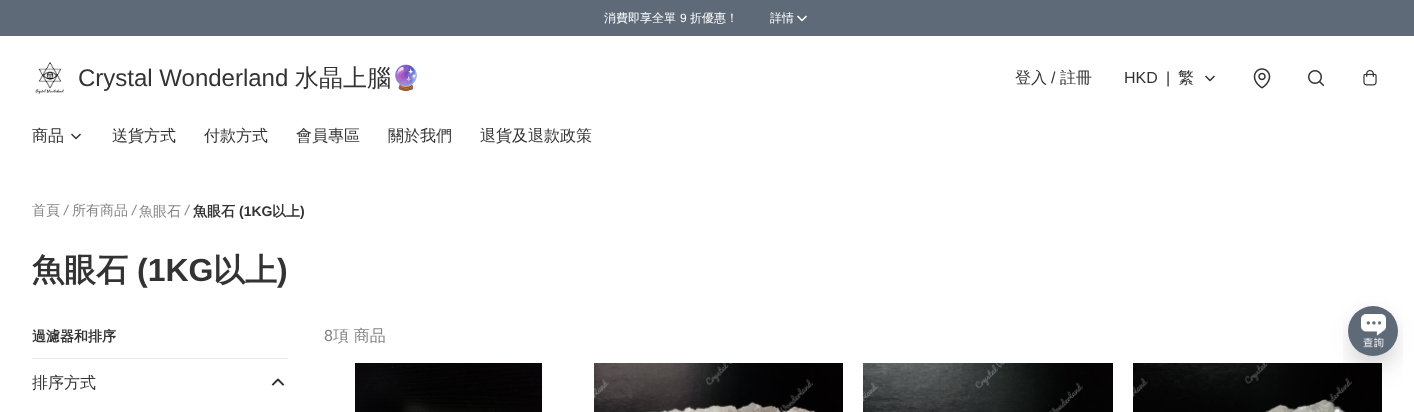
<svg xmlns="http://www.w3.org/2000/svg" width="1414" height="412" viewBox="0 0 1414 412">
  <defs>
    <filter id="blur1" x="-50%" y="-200%" width="200%" height="500%"><feGaussianBlur stdDeviation="15"/></filter>
    <filter id="blur2" x="-50%" y="-200%" width="200%" height="500%"><feGaussianBlur stdDeviation="10"/></filter>
  </defs>
  <rect width="100%" height="100%" fill="#ffffff"/>
  <rect x="0" y="0" width="1414" height="36" fill="#5f6a78"/>
  <text x="604" y="22" font-family="WenQuanYi Zen Hei" font-size="12" font-weight="500" fill="#ffffff">消費即享全單</text>
  <text x="680" y="22" font-family="Liberation Sans" font-size="12" fill="#ffffff">9</text>
  <text x="690" y="22" font-family="WenQuanYi Zen Hei" font-size="12" font-weight="500" fill="#ffffff">折優惠！</text>
  <text x="770" y="22" font-family="WenQuanYi Zen Hei" font-size="12" font-weight="500" fill="#ffffff">詳情</text>
  <path d="M798 16.5L802 20.5L806 16.5" fill="none" stroke="#ffffff" stroke-width="1.5" stroke-linecap="square" stroke-linejoin="round"/>
  <image x="35" y="62" width="29" height="32" href="img1.png"/>
  <text x="78" y="86" font-family="Liberation Sans" font-size="24" fill="#333333">Crystal Wonderland</text>
  <text x="295" y="86" font-family="WenQuanYi Zen Hei" font-size="24" font-weight="500" fill="#333333">水晶上腦</text>
  <text x="391" y="86" font-family="Noto Color Emoji" font-size="24" fill="#333333">🔮</text>
  <text x="1015" y="83" font-family="WenQuanYi Zen Hei" font-size="16" font-weight="500" fill="#333333">登入</text>
  <text x="1051" y="83" font-family="Liberation Sans" font-size="16" fill="#333333">/</text>
  <text x="1060" y="83" font-family="WenQuanYi Zen Hei" font-size="16" font-weight="500" fill="#333333">註冊</text>
  <text x="1124" y="83" font-family="Liberation Sans" font-size="16" fill="#333333">HKD</text>
  <text x="1166" y="83" font-family="Liberation Sans" font-size="16" fill="#333333">|</text>
  <text x="1178" y="83" font-family="WenQuanYi Zen Hei" font-size="16" font-weight="500" fill="#333333">繁</text>
  <path d="M1206 76.5L1210 80.5L1214 76.5" fill="none" stroke="#333333" stroke-width="1.5" stroke-linecap="square" stroke-linejoin="round"/>
  <image x="1253" y="68" width="18" height="21" href="img2.png"/>
  <image x="1308" y="70" width="16" height="16" href="img3.png"/>
  <image x="1363" y="69" width="14" height="17" href="img4.png"/>
  <text x="32" y="141" font-family="WenQuanYi Zen Hei" font-size="16" font-weight="500" fill="#333333">商品</text>
  <path d="M72 134.5L76 138.5L80 134.5" fill="none" stroke="#333333" stroke-width="1.5" stroke-linecap="square" stroke-linejoin="round"/>
  <text x="112" y="141" font-family="WenQuanYi Zen Hei" font-size="16" font-weight="500" fill="#333333">送貨方式</text>
  <text x="204" y="141" font-family="WenQuanYi Zen Hei" font-size="16" font-weight="500" fill="#333333">付款方式</text>
  <text x="296" y="141" font-family="WenQuanYi Zen Hei" font-size="16" font-weight="500" fill="#333333">會員專區</text>
  <text x="388" y="141" font-family="WenQuanYi Zen Hei" font-size="16" font-weight="500" fill="#333333">關於我們</text>
  <text x="480" y="141" font-family="WenQuanYi Zen Hei" font-size="16" font-weight="500" fill="#333333">退貨及退款政策</text>
  <text x="32" y="215" font-family="WenQuanYi Zen Hei" font-size="14" font-weight="500" fill="#858585">首頁</text>
  <text x="64" y="215" font-family="Liberation Sans" font-size="14" font-style="italic" fill="#858585">/</text>
  <text x="72" y="215" font-family="WenQuanYi Zen Hei" font-size="14" font-weight="500" fill="#858585">所有商品</text>
  <text x="132" y="215" font-family="Liberation Sans" font-size="14" font-style="italic" fill="#858585">/</text>
  <text x="139" y="216" font-family="WenQuanYi Zen Hei" font-size="14" font-weight="500" fill="#858585">魚眼石</text>
  <text x="185" y="215" font-family="Liberation Sans" font-size="14" font-style="italic" fill="#858585">/</text>
  <text x="193" y="216" font-family="WenQuanYi Zen Hei" font-size="14" font-weight="bold" fill="#333333">魚眼石</text>
  <text x="239" y="216" font-family="Liberation Sans" font-size="14" font-weight="bold" fill="#333333">(1KG</text>
  <text x="272" y="216" font-family="WenQuanYi Zen Hei" font-size="14" font-weight="bold" fill="#333333">以上</text>
  <text x="300" y="216" font-family="Liberation Sans" font-size="14" font-weight="bold" fill="#333333">)</text>
  <text x="32" y="281" font-family="WenQuanYi Zen Hei" font-size="32" font-weight="bold" fill="#333333">魚眼石</text>
  <text x="137" y="281" font-family="Liberation Sans" font-size="32" font-weight="bold" fill="#333333">(1KG</text>
  <text x="213" y="281" font-family="WenQuanYi Zen Hei" font-size="32" font-weight="bold" fill="#333333">以上</text>
  <text x="277" y="281" font-family="Liberation Sans" font-size="32" font-weight="bold" fill="#333333">)</text>
  <text x="32" y="341" font-family="WenQuanYi Zen Hei" font-size="14" font-weight="bold" fill="#333333">過濾器和排序</text>
  <rect x="32" y="358" width="256" height="1" fill="#ebebeb"/>
  <text x="32" y="388" font-family="WenQuanYi Zen Hei" font-size="16" font-weight="500" fill="#333333">排序方式</text>
  <path d="M283 384.5L278 379.5L273 384.5" fill="none" stroke="#333333" stroke-width="1.9" stroke-linecap="square" stroke-linejoin="round"/>
  <text x="324" y="341" font-family="Liberation Sans" font-size="16" fill="#858585">8</text>
  <text x="333" y="341" font-family="WenQuanYi Zen Hei" font-size="16" font-weight="500" fill="#858585">項 商品</text>
  <image x="355" y="363" width="187" height="49" href="img5.png"/>
  <image x="594" y="363" width="249" height="49" href="img6.png"/>
  <image x="863" y="363" width="250" height="49" href="img7.png"/>
  <image x="1133" y="363" width="249" height="49" href="img8.png"/>
  <rect x="1358" y="331" width="30" height="30" rx="15" fill="#000000" fill-opacity="0.3" filter="url(#blur1)"/>
  <rect x="1348" y="311" width="50" height="50" rx="25" fill="#000000" fill-opacity="0.05" filter="url(#blur2)"/>
  <circle cx="1373" cy="331" r="25" fill="#5f6a78"/>
  <image x="1361" y="314" width="25" height="34" href="img9.png"/>
</svg>
